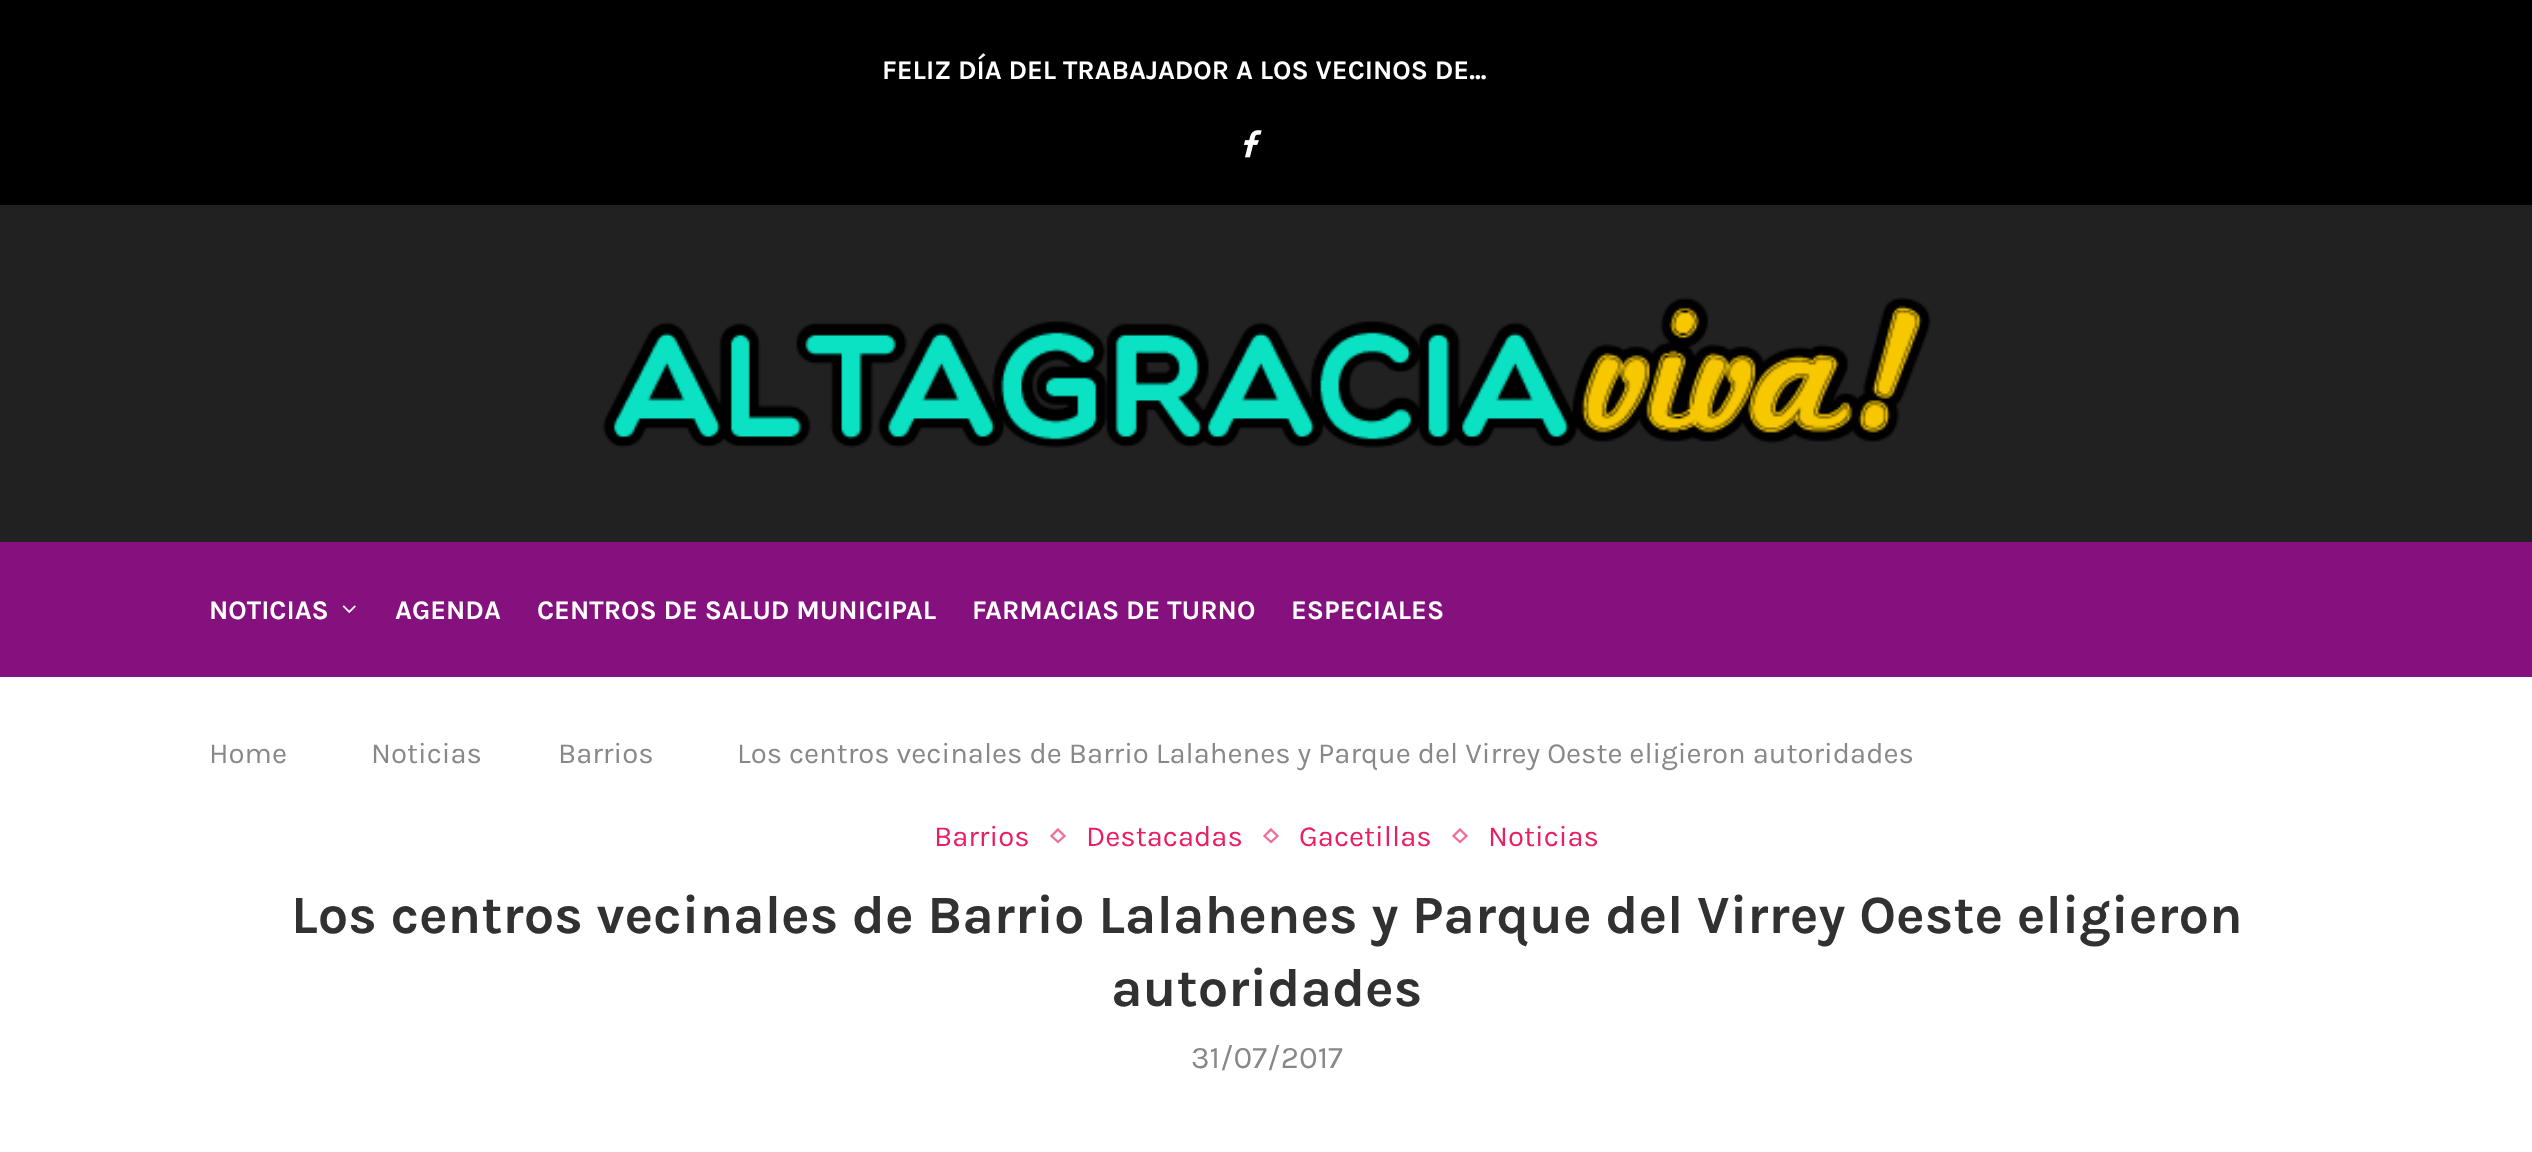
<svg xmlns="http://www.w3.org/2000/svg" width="2532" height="1152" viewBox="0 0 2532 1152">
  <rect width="100%" height="100%" fill="#ffffff"/>
  <rect x="0" y="0" width="2532" height="205" fill="#000000"/>
  <text x="882" y="79" font-family="Karla" font-size="27" font-weight="bold" fill="#ffffff">FELIZ DÍA DEL TRABAJADOR A LOS VECINOS DE...</text>
  <image x="1243" y="130" width="19" height="28" href="img1.png"/>
  <rect x="0" y="205" width="2532" height="337" fill="#212121"/>
  <image x="602" y="297" width="1329" height="151" href="img2.png"/>
  <rect x="0" y="542" width="2532" height="135" fill="#84117e"/>
  <text x="209" y="619" font-family="Karla" font-size="27" font-weight="bold" fill="#ffffff">NOTICIAS</text>
  <image x="342" y="605" width="14" height="8" href="img3.png"/>
  <text x="395" y="619" font-family="Karla" font-size="27" font-weight="bold" fill="#ffffff">AGENDA</text>
  <text x="537" y="619" font-family="Karla" font-size="27" font-weight="bold" fill="#ffffff">CENTROS DE SALUD MUNICIPAL</text>
  <text x="972" y="619" font-family="Karla" font-size="27" font-weight="bold" fill="#ffffff">FARMACIAS DE TURNO</text>
  <text x="1291" y="619" font-family="Karla" font-size="27" font-weight="bold" fill="#ffffff">ESPECIALES</text>
  <text x="209" y="763" font-family="Karla" font-size="29.25" fill="#888888">Home</text>
  <text x="371" y="763" font-family="Karla" font-size="29.25" fill="#888888">Noticias</text>
  <text x="558" y="763" font-family="Karla" font-size="29.25" fill="#888888">Barrios</text>
  <text x="737" y="763" font-family="Karla" font-size="29.25" fill="#888888">Los centros vecinales de Barrio Lalahenes y Parque del Virrey Oeste eligieron autoridades</text>
  <text x="934" y="846" font-family="Karla" font-size="29.25" fill="#e91e63">Barrios</text>
  <path d="M1058 829.5L1064.5 836L1058 842L1051.5 836Z" fill="none" stroke="#f16d9a" stroke-width="2.3"/>
  <text x="1086" y="846" font-family="Karla" font-size="29.25" fill="#e91e63">Destacadas</text>
  <path d="M1271 829.5L1277.5 836L1271 842L1264.5 836Z" fill="none" stroke="#f16d9a" stroke-width="2.3"/>
  <text x="1299" y="846" font-family="Karla" font-size="29.25" fill="#e91e63">Gacetillas</text>
  <path d="M1460 829.5L1466.5 836L1460 842L1453.5 836Z" fill="none" stroke="#f16d9a" stroke-width="2.3"/>
  <text x="1488" y="846" font-family="Karla" font-size="29.25" fill="#e91e63">Noticias</text>
  <text x="291" y="933" font-family="Karla" font-size="54" font-weight="bold" fill="#313131">Los centros vecinales de Barrio Lalahenes y Parque del Virrey Oeste eligieron</text>
  <text x="1111" y="1006" font-family="Karla" font-size="54" font-weight="bold" fill="#313131">autoridades</text>
  <text x="1191" y="1068" font-family="Karla" font-size="31.5" fill="#888888">31/07/2017</text>
</svg>
